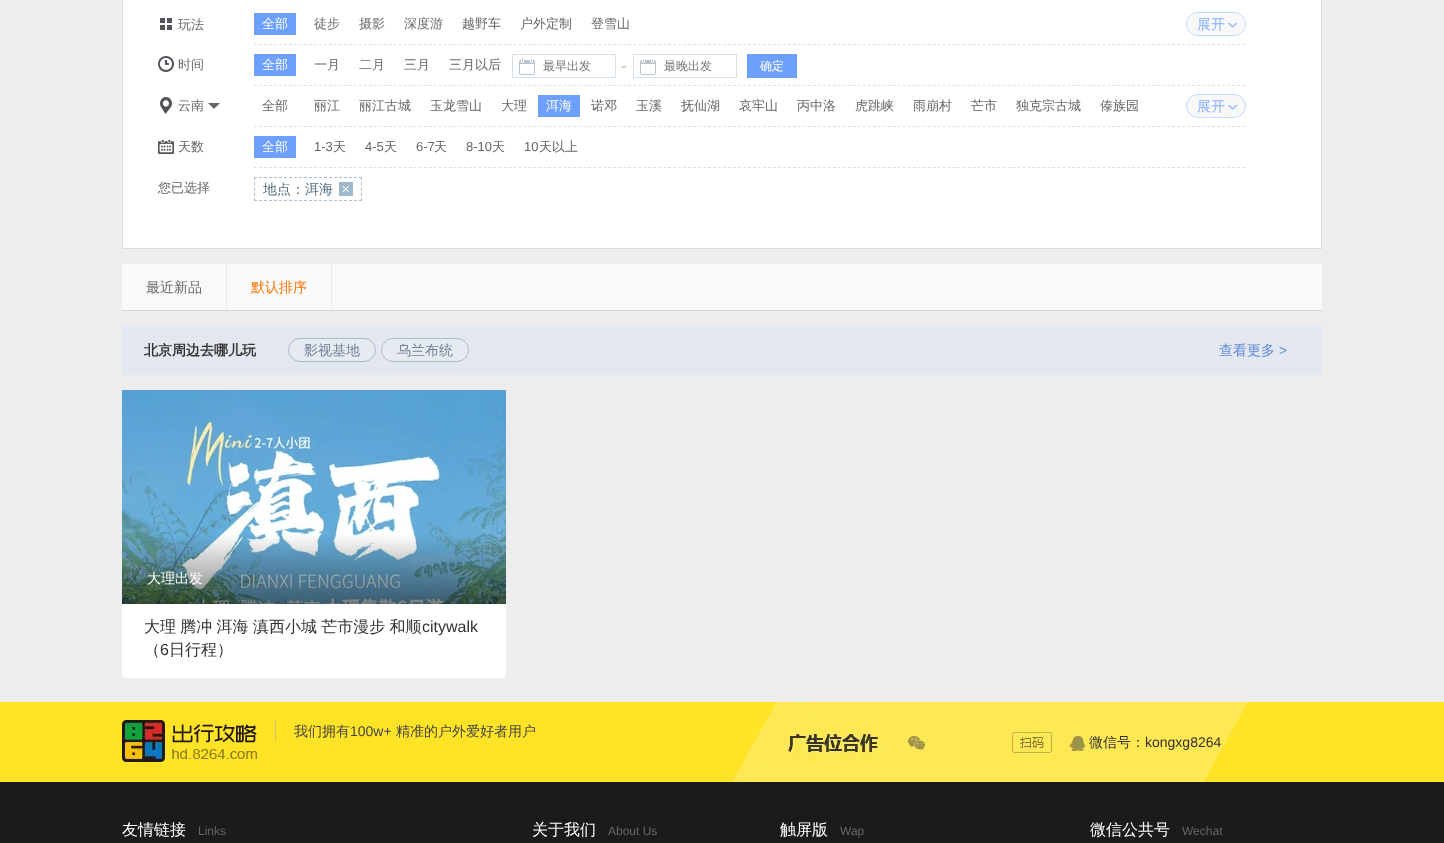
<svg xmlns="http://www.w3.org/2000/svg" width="1444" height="843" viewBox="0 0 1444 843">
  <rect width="100%" height="100%" fill="#ededed"/>
  <rect x="122.5" y="-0.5" width="1199" height="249" fill="#ffffff" stroke="#dbdbdb"/>
  <image x="160" y="18" width="12" height="12" href="img1.png"/>
  <text x="178" y="29" font-family="WenQuanYi Zen Hei" font-size="13" font-weight="500" fill="#666666">玩法</text>
  <rect x="254" y="13" width="42" height="22" fill="#6da0fd"/>
  <text x="262" y="28" font-family="WenQuanYi Zen Hei" font-size="13" font-weight="500" fill="#ffffff">全部</text>
  <text x="314" y="28" font-family="WenQuanYi Zen Hei" font-size="13" font-weight="500" fill="#666666">徒步</text>
  <text x="359" y="28" font-family="WenQuanYi Zen Hei" font-size="13" font-weight="500" fill="#666666">摄影</text>
  <text x="404" y="28" font-family="WenQuanYi Zen Hei" font-size="13" font-weight="500" fill="#666666">深度游</text>
  <text x="462" y="28" font-family="WenQuanYi Zen Hei" font-size="13" font-weight="500" fill="#666666">越野车</text>
  <text x="520" y="28" font-family="WenQuanYi Zen Hei" font-size="13" font-weight="500" fill="#666666">户外定制</text>
  <text x="591" y="28" font-family="WenQuanYi Zen Hei" font-size="13" font-weight="500" fill="#666666">登雪山</text>
  <rect x="1186" y="12" width="60" height="24" rx="12" fill="#f8f8f8"/>
  <image x="1228" y="23" width="10" height="5" href="img2.png"/>
  <rect x="1186.5" y="12.5" width="59" height="23" rx="11.5" fill="none" stroke="#c7dbff"/>
  <text x="1197" y="29" font-family="WenQuanYi Zen Hei" font-size="14" font-weight="500" fill="#85b0ff">展开</text>
  <image x="158" y="56" width="16" height="16" href="img3.png"/>
  <text x="178" y="69" font-family="WenQuanYi Zen Hei" font-size="13" font-weight="500" fill="#666666">时间</text>
  <path d="M254 44.5H1246" fill="none" stroke="#dae3ea" stroke-dasharray="3 1.99"/>
  <rect x="254" y="54" width="42" height="22" fill="#6da0fd"/>
  <text x="262" y="69" font-family="WenQuanYi Zen Hei" font-size="13" font-weight="500" fill="#ffffff">全部</text>
  <text x="314" y="69" font-family="WenQuanYi Zen Hei" font-size="13" font-weight="500" fill="#666666">一月</text>
  <text x="359" y="69" font-family="WenQuanYi Zen Hei" font-size="13" font-weight="500" fill="#666666">二月</text>
  <text x="404" y="69" font-family="WenQuanYi Zen Hei" font-size="13" font-weight="500" fill="#666666">三月</text>
  <text x="449" y="69" font-family="WenQuanYi Zen Hei" font-size="13" font-weight="500" fill="#666666">三月以后</text>
  <rect x="512.5" y="54.5" width="103" height="23" fill="none" stroke="#d4e1eb"/>
  <image x="519" y="59" width="16" height="16" href="img4.png"/>
  <text x="543" y="70" font-family="WenQuanYi Zen Hei" font-size="12" font-weight="500" fill="#757575">最早出发</text>
  <text x="620" y="72" font-family="Liberation Sans" font-size="20" font-style="italic" fill="#cacaca">-</text>
  <rect x="633.5" y="54.5" width="103" height="23" fill="none" stroke="#d4e1eb"/>
  <image x="640" y="59" width="16" height="16" href="img4.png"/>
  <text x="664" y="70" font-family="WenQuanYi Zen Hei" font-size="12" font-weight="500" fill="#757575">最晚出发</text>
  <rect x="747" y="54" width="50" height="24" fill="#6da0fd"/>
  <text x="760" y="70" font-family="WenQuanYi Zen Hei" font-size="12" font-weight="500" fill="#ffffff">确定</text>
  <image x="160" y="97" width="12" height="17" href="img5.png"/>
  <text x="178" y="110" font-family="WenQuanYi Zen Hei" font-size="13" font-weight="500" fill="#666666">云南</text>
  <path d="M208 103H220L214 109Z" fill="#666666"/>
  <path d="M254 85.5H1246" fill="none" stroke="#dae3ea" stroke-dasharray="3 1.99"/>
  <text x="262" y="110" font-family="WenQuanYi Zen Hei" font-size="13" font-weight="500" fill="#666666">全部</text>
  <text x="314" y="110" font-family="WenQuanYi Zen Hei" font-size="13" font-weight="500" fill="#666666">丽江</text>
  <text x="359" y="110" font-family="WenQuanYi Zen Hei" font-size="13" font-weight="500" fill="#666666">丽江古城</text>
  <text x="430" y="110" font-family="WenQuanYi Zen Hei" font-size="13" font-weight="500" fill="#666666">玉龙雪山</text>
  <text x="501" y="110" font-family="WenQuanYi Zen Hei" font-size="13" font-weight="500" fill="#666666">大理</text>
  <rect x="538" y="95" width="42" height="22" fill="#6da0fd"/>
  <text x="546" y="110" font-family="WenQuanYi Zen Hei" font-size="13" font-weight="500" fill="#ffffff">洱海</text>
  <text x="591" y="110" font-family="WenQuanYi Zen Hei" font-size="13" font-weight="500" fill="#666666">诺邓</text>
  <text x="636" y="110" font-family="WenQuanYi Zen Hei" font-size="13" font-weight="500" fill="#666666">玉溪</text>
  <text x="681" y="110" font-family="WenQuanYi Zen Hei" font-size="13" font-weight="500" fill="#666666">抚仙湖</text>
  <text x="739" y="110" font-family="WenQuanYi Zen Hei" font-size="13" font-weight="500" fill="#666666">哀牢山</text>
  <text x="797" y="110" font-family="WenQuanYi Zen Hei" font-size="13" font-weight="500" fill="#666666">丙中洛</text>
  <text x="855" y="110" font-family="WenQuanYi Zen Hei" font-size="13" font-weight="500" fill="#666666">虎跳峡</text>
  <text x="913" y="110" font-family="WenQuanYi Zen Hei" font-size="13" font-weight="500" fill="#666666">雨崩村</text>
  <text x="971" y="110" font-family="WenQuanYi Zen Hei" font-size="13" font-weight="500" fill="#666666">芒市</text>
  <text x="1016" y="110" font-family="WenQuanYi Zen Hei" font-size="13" font-weight="500" fill="#666666">独克宗古城</text>
  <text x="1100" y="110" font-family="WenQuanYi Zen Hei" font-size="13" font-weight="500" fill="#666666">傣族园</text>
  <rect x="1186" y="94" width="60" height="24" rx="12" fill="#f8f8f8"/>
  <image x="1228" y="105" width="10" height="5" href="img2.png"/>
  <rect x="1186.5" y="94.5" width="59" height="23" rx="11.5" fill="none" stroke="#c7dbff"/>
  <text x="1197" y="111" font-family="WenQuanYi Zen Hei" font-size="14" font-weight="500" fill="#85b0ff">展开</text>
  <image x="158" y="140" width="16" height="14" href="img6.png"/>
  <text x="178" y="151" font-family="WenQuanYi Zen Hei" font-size="13" font-weight="500" fill="#666666">天数</text>
  <path d="M254 126.5H1246" fill="none" stroke="#dae3ea" stroke-dasharray="3 1.99"/>
  <rect x="254" y="136" width="42" height="22" fill="#6da0fd"/>
  <text x="262" y="151" font-family="WenQuanYi Zen Hei" font-size="13" font-weight="500" fill="#ffffff">全部</text>
  <text x="314" y="151" font-family="Liberation Sans" font-size="13" fill="#666666">1-3</text>
  <text x="333" y="151" font-family="WenQuanYi Zen Hei" font-size="13" font-weight="500" fill="#666666">天</text>
  <text x="365" y="151" font-family="Liberation Sans" font-size="13" fill="#666666">4-5</text>
  <text x="384" y="151" font-family="WenQuanYi Zen Hei" font-size="13" font-weight="500" fill="#666666">天</text>
  <text x="416" y="151" font-family="Liberation Sans" font-size="13" fill="#666666">6-7</text>
  <text x="434" y="151" font-family="WenQuanYi Zen Hei" font-size="13" font-weight="500" fill="#666666">天</text>
  <text x="466" y="151" font-family="Liberation Sans" font-size="13" fill="#666666">8-10</text>
  <text x="492" y="151" font-family="WenQuanYi Zen Hei" font-size="13" font-weight="500" fill="#666666">天</text>
  <text x="524" y="151" font-family="Liberation Sans" font-size="13" fill="#666666">10</text>
  <text x="539" y="151" font-family="WenQuanYi Zen Hei" font-size="13" font-weight="500" fill="#666666">天以上</text>
  <text x="158" y="192" font-family="WenQuanYi Zen Hei" font-size="13" font-weight="500" fill="#666666">您已选择</text>
  <path d="M254 167.5H1246" fill="none" stroke="#dae3ea" stroke-dasharray="3 1.99"/>
  <path d="M254 177.5H362" fill="none" stroke="#aac0d1" stroke-dasharray="3 2"/>
  <path d="M361.5 177V201" fill="none" stroke="#aac0d1" stroke-dasharray="3 2.25"/>
  <path d="M254 200.5H362" fill="none" stroke="#aac0d1" stroke-dasharray="3 2"/>
  <path d="M254.5 177V201" fill="none" stroke="#aac0d1" stroke-dasharray="3 2.25"/>
  <text x="263" y="194" font-family="WenQuanYi Zen Hei" font-size="14" font-weight="500" fill="#556e81">地点：洱海</text>
  <rect x="339" y="182" width="14" height="14" fill="#a0b8cb"/>
  <image x="343" y="186" width="6" height="6" href="img7.png"/>
  <rect x="122" y="310" width="1200" height="1" fill="#d6d5d5"/>
  <rect x="122" y="264" width="1200" height="46" fill="#f9f9f9"/>
  <rect x="226" y="264" width="1" height="46" fill="#eaeaea"/>
  <text x="146" y="292" font-family="WenQuanYi Zen Hei" font-size="14" font-weight="500" fill="#666666">最近新品</text>
  <rect x="331" y="264" width="1" height="46" fill="#eaeaea"/>
  <text x="251" y="292" font-family="WenQuanYi Zen Hei" font-size="14" font-weight="500" fill="#ff7200">默认排序</text>
  <rect x="122" y="325" width="1200" height="50" fill="#e3e7ef"/>
  <text x="144" y="355" font-family="WenQuanYi Zen Hei" font-size="14" font-weight="bold" fill="#333333">北京周边去哪儿玩</text>
  <rect x="288.5" y="338.5" width="87" height="23" rx="11.5" fill="#e6eaf1" stroke="#aebad0"/>
  <text x="304" y="355" font-family="WenQuanYi Zen Hei" font-size="14" font-weight="500" fill="#748096">影视基地</text>
  <rect x="381.5" y="338.5" width="87" height="23" rx="11.5" fill="#e6eaf1" stroke="#aebad0"/>
  <text x="397" y="355" font-family="WenQuanYi Zen Hei" font-size="14" font-weight="500" fill="#748096">乌兰布统</text>
  <text x="1219" y="355" font-family="WenQuanYi Zen Hei" font-size="14" font-weight="500" fill="#5e8bdc">查看更多</text>
  <text x="1279" y="355" font-family="Liberation Sans" font-size="14" fill="#5e8bdc">&gt;</text>
  <image x="122" y="390" width="384" height="214" href="img8.png"/>
  <path d="M122 604H506V675C506 676.5 504.5 678 503 678H125C123.5 678 122 676.5 122 675Z" fill="#ffffff"/>
  <text x="147" y="583" font-family="WenQuanYi Zen Hei" font-size="14" font-weight="500" fill="#ffffff">大理出发</text>
  <text x="144" y="632" word-spacing="-0.5" font-family="WenQuanYi Zen Hei" font-size="16" font-weight="500" fill="#333333">大理 腾冲 洱海 滇西小城 芒市漫步 和顺</text>
  <text x="422" y="632" font-family="Liberation Sans" font-size="16" fill="#333333">citywalk</text>
  <text x="144" y="655" font-family="WenQuanYi Zen Hei" font-size="16" font-weight="500" fill="#333333">（</text>
  <text x="160" y="655" font-family="Liberation Sans" font-size="16" fill="#333333">6</text>
  <text x="169" y="655" font-family="WenQuanYi Zen Hei" font-size="16" font-weight="500" fill="#333333">日行程）</text>
  <rect x="0" y="702" width="1444" height="80" fill="#ffe326"/>
  <image x="122" y="720" width="135" height="42" href="img9.png"/>
  <rect x="275" y="720" width="1" height="22" fill="#d3c56b"/>
  <text x="294" y="736" font-family="WenQuanYi Zen Hei" font-size="14" font-weight="500" fill="#444444">我们拥有</text>
  <text x="350" y="736" font-family="Liberation Sans" font-size="14" fill="#444444">100w+</text>
  <text x="396" y="736" font-family="WenQuanYi Zen Hei" font-size="14" font-weight="500" fill="#444444">精准的户外爱好者用户</text>
  <image x="732" y="702" width="516" height="80" href="img10.png"/>
  <text x="1089" y="747" font-family="WenQuanYi Zen Hei" font-size="14" font-weight="500" fill="#333333">微信号：</text>
  <text x="1145" y="747" font-family="Liberation Sans" font-size="14" fill="#333333">kongxg8264</text>
  <rect x="0" y="782" width="1444" height="61" fill="#1b1b1b"/>
  <text x="122" y="835" font-family="WenQuanYi Zen Hei" font-size="16" font-weight="500" fill="#ffffff">友情链接</text>
  <text x="198" y="835" font-family="Liberation Sans" font-size="12" fill="#666666">Links</text>
  <text x="532" y="835" font-family="WenQuanYi Zen Hei" font-size="16" font-weight="500" fill="#ffffff">关于我们</text>
  <text x="608" y="835" font-family="Liberation Sans" font-size="12" fill="#666666">About Us</text>
  <text x="780" y="835" font-family="WenQuanYi Zen Hei" font-size="16" font-weight="500" fill="#ffffff">触屏版</text>
  <text x="840" y="835" font-family="Liberation Sans" font-size="12" fill="#666666">Wap</text>
  <text x="1090" y="835" font-family="WenQuanYi Zen Hei" font-size="16" font-weight="500" fill="#ffffff">微信公共号</text>
  <text x="1182" y="835" font-family="Liberation Sans" font-size="12" fill="#666666">Wechat</text>
</svg>
